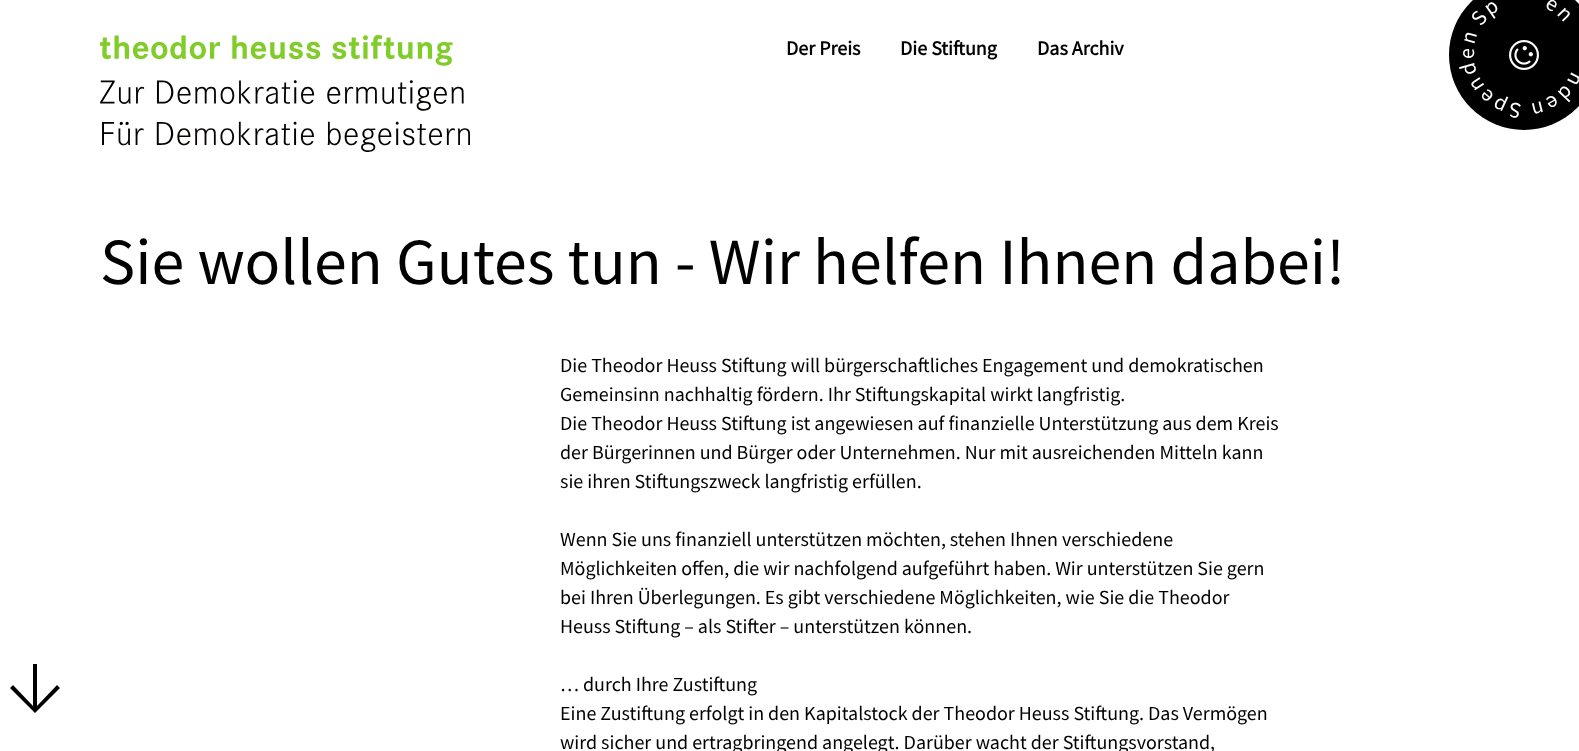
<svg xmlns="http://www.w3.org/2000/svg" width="1579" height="751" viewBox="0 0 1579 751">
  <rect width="100%" height="100%" fill="#ffffff"/>
  <image x="100" y="35" width="370" height="117" href="img1.png"/>
  <text x="786" y="55" font-family="Source Sans Pro" font-size="20" font-weight="bold" fill="#000000">Der Preis</text>
  <text x="900" y="55" font-family="Source Sans Pro" font-size="20" font-weight="bold" fill="#000000">Die Stiftung</text>
  <text x="1037" y="55" font-family="Source Sans Pro" font-size="20" font-weight="bold" fill="#000000">Das Archiv</text>
  <circle cx="1524" cy="55" r="75" fill="#000000"/>
  <text x="1481" y="27" transform="rotate(-51.6 1481 27)" font-family="Source Sans Pro" font-size="22" fill="#ffffff">S</text>
  <text x="1490" y="16" transform="rotate(-34.9 1490 16)" font-family="Source Sans Pro" font-size="22" fill="#ffffff">p</text>
  <text x="1544" y="7" transform="rotate(30 1544 7)" font-family="Source Sans Pro" font-size="22" fill="#ffffff">e</text>
  <text x="1556" y="14" transform="rotate(46 1556 14)" font-family="Source Sans Pro" font-size="22" fill="#ffffff">n</text>
  <text x="1474" y="45" transform="rotate(-74 1474 45)" font-family="Source Sans Pro" font-size="22" fill="#ffffff">n</text>
  <text x="1474" y="59" transform="rotate(-90 1474 59)" font-family="Source Sans Pro" font-size="22" fill="#ffffff">e</text>
  <text x="1477" y="73" transform="rotate(-106 1477 73)" font-family="Source Sans Pro" font-size="22" fill="#ffffff">d</text>
  <text x="1485" y="86" transform="rotate(-122.8 1485 86)" font-family="Source Sans Pro" font-size="22" fill="#ffffff">n</text>
  <text x="1572" y="71" transform="rotate(117.2 1572 71)" font-family="Source Sans Pro" font-size="22" fill="#ffffff">n</text>
  <text x="1495" y="95" transform="rotate(-138.8 1495 95)" font-family="Source Sans Pro" font-size="22" fill="#ffffff">e</text>
  <text x="1508" y="102" transform="rotate(-154.9 1508 102)" font-family="Source Sans Pro" font-size="22" fill="#ffffff">p</text>
  <text x="1522" y="104" transform="rotate(-171.6 1522 104)" font-family="Source Sans Pro" font-size="22" fill="#ffffff">S</text>
  <text x="1542" y="101" transform="rotate(166 1542 101)" font-family="Source Sans Pro" font-size="22" fill="#ffffff">n</text>
  <text x="1554" y="94" transform="rotate(150 1554 94)" font-family="Source Sans Pro" font-size="22" fill="#ffffff">e</text>
  <text x="1565" y="84" transform="rotate(134 1565 84)" font-family="Source Sans Pro" font-size="22" fill="#ffffff">d</text>
  <image x="1509" y="40" width="30" height="30" href="img2.png"/>
  <path d="M60 688L35 713L10 688L13 685L33 706V664H37V706L57 685Z" fill="#000000"/>
  <text x="100" y="284" font-family="Source Sans Pro" font-size="66" fill="#000000">Sie wollen Gutes tun - Wir helfen Ihnen dabei!</text>
  <text x="560" y="372" font-family="Source Sans Pro" font-size="20" fill="#000000">Die Theodor Heuss Stiftung will bürgerschaftliches Engagement und demokratischen</text>
  <text x="560" y="401" font-family="Source Sans Pro" font-size="20" fill="#000000">Gemeinsinn nachhaltig fördern. Ihr Stiftungskapital wirkt langfristig.</text>
  <text x="560" y="430" font-family="Source Sans Pro" font-size="20" fill="#000000">Die Theodor Heuss Stiftung ist angewiesen auf finanzielle Unterstützung aus dem Kreis</text>
  <text x="560" y="459" font-family="Source Sans Pro" font-size="20" fill="#000000">der Bürgerinnen und Bürger oder Unternehmen. Nur mit ausreichenden Mitteln kann</text>
  <text x="560" y="488" font-family="Source Sans Pro" font-size="20" fill="#000000">sie ihren Stiftungszweck langfristig erfüllen.</text>
  <text x="560" y="546" font-family="Source Sans Pro" font-size="20" fill="#000000">Wenn Sie uns finanziell unterstützen möchten, stehen Ihnen verschiedene</text>
  <text x="560" y="575" font-family="Source Sans Pro" font-size="20" fill="#000000">Möglichkeiten offen, die wir nachfolgend aufgeführt haben. Wir unterstützen Sie gern</text>
  <text x="560" y="604" font-family="Source Sans Pro" font-size="20" fill="#000000">bei Ihren Überlegungen. Es gibt verschiedene Möglichkeiten, wie Sie die Theodor</text>
  <text x="560" y="633" font-family="Source Sans Pro" font-size="20" fill="#000000">Heuss Stiftung – als Stifter – unterstützen können.</text>
  <text x="560" y="691" font-family="Source Sans Pro" font-size="20" fill="#000000">… durch Ihre Zustiftung</text>
  <text x="560" y="720" font-family="Source Sans Pro" font-size="20" fill="#000000">Eine Zustiftung erfolgt in den Kapitalstock der Theodor Heuss Stiftung. Das Vermögen</text>
  <text x="560" y="749" font-family="Source Sans Pro" font-size="20" fill="#000000">wird sicher und ertragbringend angelegt. Darüber wacht der Stiftungsvorstand,</text>
</svg>
